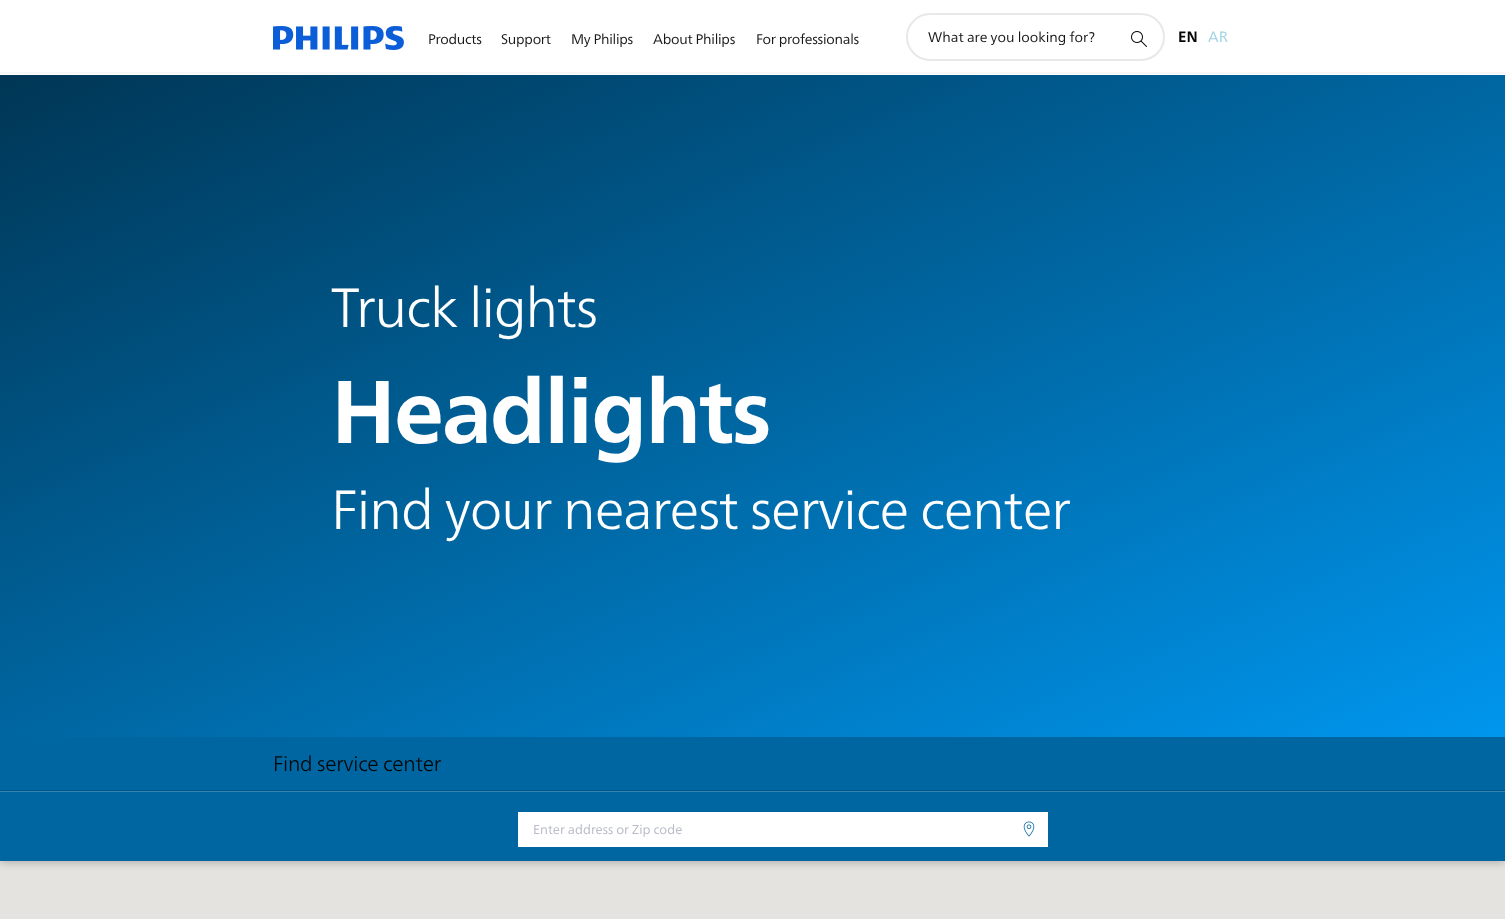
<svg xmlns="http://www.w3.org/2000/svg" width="1505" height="919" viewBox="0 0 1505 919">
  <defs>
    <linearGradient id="g1" gradientUnits="userSpaceOnUse" x1="509" y1="-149" x2="996" y2="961"><stop offset="0" stop-color="#003655"/><stop offset="0.5" stop-color="#0066a1"/><stop offset="1" stop-color="#0096ee"/></linearGradient>
    <clipPath id="clip1"><rect x="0" y="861" width="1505" height="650"/></clipPath>
    <filter id="blur1" x="-50%" y="-200%" width="200%" height="500%"><feGaussianBlur stdDeviation="5"/></filter>
  </defs>
  <rect width="100%" height="100%" fill="#ffffff"/>
  <image x="273" y="26" width="131" height="24" href="img1.png"/>
  <text x="428" y="44" font-family="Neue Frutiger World" font-size="14" letter-spacing="-0.25" fill="#18181b">Products</text>
  <text x="501" y="44" font-family="Neue Frutiger World" font-size="14" letter-spacing="-0.25" fill="#18181b">Support</text>
  <text x="571" y="44" font-family="Neue Frutiger World" font-size="14" letter-spacing="-0.25" fill="#18181b">My Philips</text>
  <text x="653" y="44" font-family="Neue Frutiger World" font-size="14" letter-spacing="-0.25" fill="#18181b">About Philips</text>
  <text x="756" y="44" font-family="Neue Frutiger World" font-size="14" letter-spacing="-0.25" fill="#18181b">For professionals</text>
  <rect x="0" y="72" width="1505" height="2" fill="#f7f7f7"/>
  <rect x="907" y="14" width="257" height="46" rx="23" fill="none" stroke="#e8e8e8" stroke-width="2"/>
  <text x="928" y="42" font-family="Neue Frutiger World" font-size="14" fill="#18181b">What are you looking for?</text>
  <image x="1131" y="31" width="16" height="16" href="img2.png"/>
  <text x="1178" y="42" font-family="Neue Frutiger World" font-size="15" font-weight="bold" fill="#050505">EN</text>
  <text x="1208" y="42" font-family="Neue Frutiger World" font-size="15" fill="#9dd3e3">AR</text>
  <rect x="0" y="75" width="1505" height="662" fill="url(#g1)"/>
  <text x="331" y="327" font-family="Neue Frutiger World" font-size="55" font-weight="300" letter-spacing="-1" fill="#ffffff">Truck lights</text>
  <text x="331" y="443" font-family="Neue Frutiger World" font-size="89" font-weight="bold" letter-spacing="-2" fill="#ffffff">Headlights</text>
  <text x="331" y="529" font-family="Neue Frutiger World" font-size="55" font-weight="300" letter-spacing="-1" fill="#ffffff">Find your nearest service center</text>
  <rect x="0" y="737" width="1505" height="124" fill="#0066a1"/>
  <rect x="0" y="790" width="1505" height="1" fill="#005789"/>
  <text x="273" y="771" font-family="Neue Frutiger World" font-size="21" font-weight="300" letter-spacing="-0.25" fill="#050505">Find service center</text>
  <rect x="0" y="791" width="1505" height="1" fill="#3385b4"/>
  <rect x="518" y="812" width="530" height="35" fill="#ffffff"/>
  <text x="533" y="834" font-family="Neue Frutiger World" font-size="13" fill="#b9bbc7">Enter address or Zip code</text>
  <image x="1023" y="821" width="12" height="16" href="img3.png"/>
  <rect x="0" y="861" width="1505" height="58" fill="#e5e3df"/>
  <g clip-path="url(#clip1)">
    <rect x="0" y="856" width="1505" height="5" fill="#000000" fill-opacity="0.4" filter="url(#blur1)"/>
  </g>
</svg>
